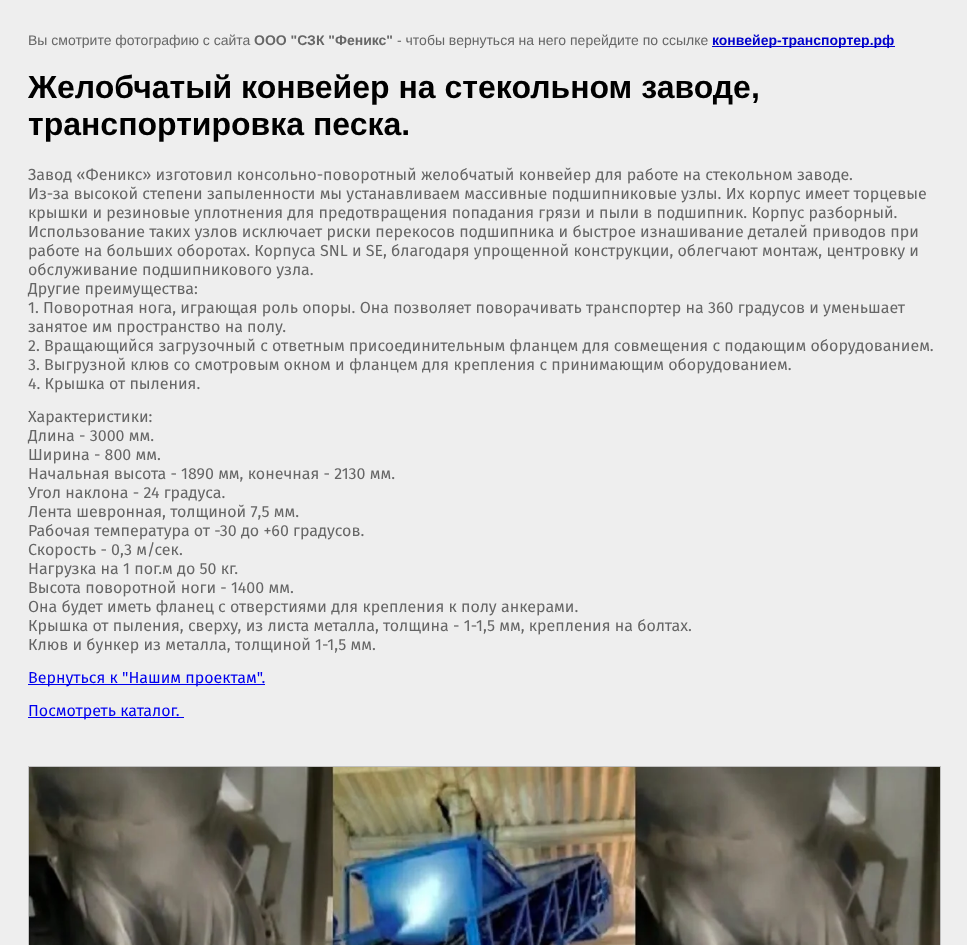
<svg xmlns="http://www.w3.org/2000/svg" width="967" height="945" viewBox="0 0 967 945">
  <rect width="100%" height="100%" fill="#eeeeee"/>
  <text x="28" y="45" font-family="Liberation Sans" font-size="14" fill="#666666">Вы смотрите фотографию с сайта</text>
  <text x="254" y="45" font-family="Liberation Sans" font-size="14" font-weight="bold" fill="#666666">ООО "СЗК "Феникс"</text>
  <text x="397" y="45" font-family="Liberation Sans" font-size="14" fill="#666666">- чтобы вернуться на него перейдите по ссылке</text>
  <rect x="712" y="46" width="183" height="1" fill="#0000cc"/>
  <text x="712" y="45" font-family="Liberation Sans" font-size="14" font-weight="bold" fill="#0000cc">конвейер-транспортер.рф</text>
  <text x="28" y="98" font-family="Liberation Sans" font-size="32" font-weight="bold" fill="#000000">Желобчатый конвейер на стекольном заводе,</text>
  <text x="28" y="135" font-family="Liberation Sans" font-size="32" font-weight="bold" fill="#000000">транспортировка песка.</text>
  <text x="28" y="180" font-family="Fira Sans" font-size="16" fill="#666666">Завод «Феникс» изготовил консольно-поворотный желобчатый конвейер для работе на стекольном заводе.</text>
  <text x="28" y="199" font-family="Fira Sans" font-size="16" fill="#666666">Из-за высокой степени запыленности мы устанавливаем массивные подшипниковые узлы. Их корпус имеет торцевые</text>
  <text x="28" y="218" font-family="Fira Sans" font-size="16" fill="#666666">крышки и резиновые уплотнения для предотвращения попадания грязи и пыли в подшипник. Корпус разборный.</text>
  <text x="28" y="237" font-family="Fira Sans" font-size="16" fill="#666666">Использование таких узлов исключает риски перекосов подшипника и быстрое изнашивание деталей приводов при</text>
  <text x="28" y="256" font-family="Fira Sans" font-size="16" fill="#666666">работе на больших оборотах. Корпуса SNL и SE, благодаря упрощенной конструкции, облегчают монтаж, центровку и</text>
  <text x="28" y="275" font-family="Fira Sans" font-size="16" fill="#666666">обслуживание подшипникового узла.</text>
  <text x="28" y="294" font-family="Fira Sans" font-size="16" fill="#666666">Другие преимущества:</text>
  <text x="28" y="313" font-family="Fira Sans" font-size="16" fill="#666666">1. Поворотная нога, играющая роль опоры. Она позволяет поворачивать транспортер на 360 градусов и уменьшает</text>
  <text x="28" y="332" font-family="Fira Sans" font-size="16" fill="#666666">занятое им пространство на полу.</text>
  <text x="28" y="351" font-family="Fira Sans" font-size="16" fill="#666666">2. Вращающийся загрузочный с ответным присоединительным фланцем для совмещения с подающим оборудованием.</text>
  <text x="28" y="370" font-family="Fira Sans" font-size="16" fill="#666666">3. Выгрузной клюв со смотровым окном и фланцем для крепления с принимающим оборудованием.</text>
  <text x="28" y="389" font-family="Fira Sans" font-size="16" fill="#666666">4. Крышка от пыления.</text>
  <text x="28" y="422" font-family="Fira Sans" font-size="16" fill="#666666">Характеристики:</text>
  <text x="28" y="441" font-family="Fira Sans" font-size="16" fill="#666666">Длина - 3000 мм.</text>
  <text x="28" y="460" font-family="Fira Sans" font-size="16" fill="#666666">Ширина - 800 мм.</text>
  <text x="28" y="479" font-family="Fira Sans" font-size="16" fill="#666666">Начальная высота - 1890 мм, конечная - 2130 мм.</text>
  <text x="28" y="498" font-family="Fira Sans" font-size="16" fill="#666666">Угол наклона - 24 градуса.</text>
  <text x="28" y="517" font-family="Fira Sans" font-size="16" fill="#666666">Лента шевронная, толщиной 7,5 мм.</text>
  <text x="28" y="536" font-family="Fira Sans" font-size="16" fill="#666666">Рабочая температура от -30 до +60 градусов.</text>
  <text x="28" y="555" font-family="Fira Sans" font-size="16" fill="#666666">Скорость - 0,3 м/сек.</text>
  <text x="28" y="574" font-family="Fira Sans" font-size="16" fill="#666666">Нагрузка на 1 пог.м до 50 кг.</text>
  <text x="28" y="593" font-family="Fira Sans" font-size="16" fill="#666666">Высота поворотной ноги - 1400 мм.</text>
  <text x="28" y="612" font-family="Fira Sans" font-size="16" fill="#666666">Она будет иметь фланец с отверстиями для крепления к полу анкерами.</text>
  <text x="28" y="631" font-family="Fira Sans" font-size="16" fill="#666666">Крышка от пыления, сверху, из листа металла, толщина - 1-1,5 мм, крепления на болтах.</text>
  <text x="28" y="650" font-family="Fira Sans" font-size="16" fill="#666666">Клюв и бункер из металла, толщиной 1-1,5 мм.</text>
  <rect x="28" y="684" width="237" height="1" fill="#0000ee"/>
  <text x="28" y="683" font-family="Fira Sans" font-size="16" fill="#0000ee">Вернуться к "Нашим проектам".</text>
  <rect x="28" y="717" width="156" height="1" fill="#0000ee"/>
  <text x="28" y="716" font-family="Fira Sans" font-size="16" fill="#0000ee">Посмотреть каталог.</text>
  <rect x="28.5" y="766.5" width="912" height="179" fill="none" stroke="#c0c0c0"/>
  <image x="29" y="767" width="911" height="178" href="img1.png"/>
</svg>
